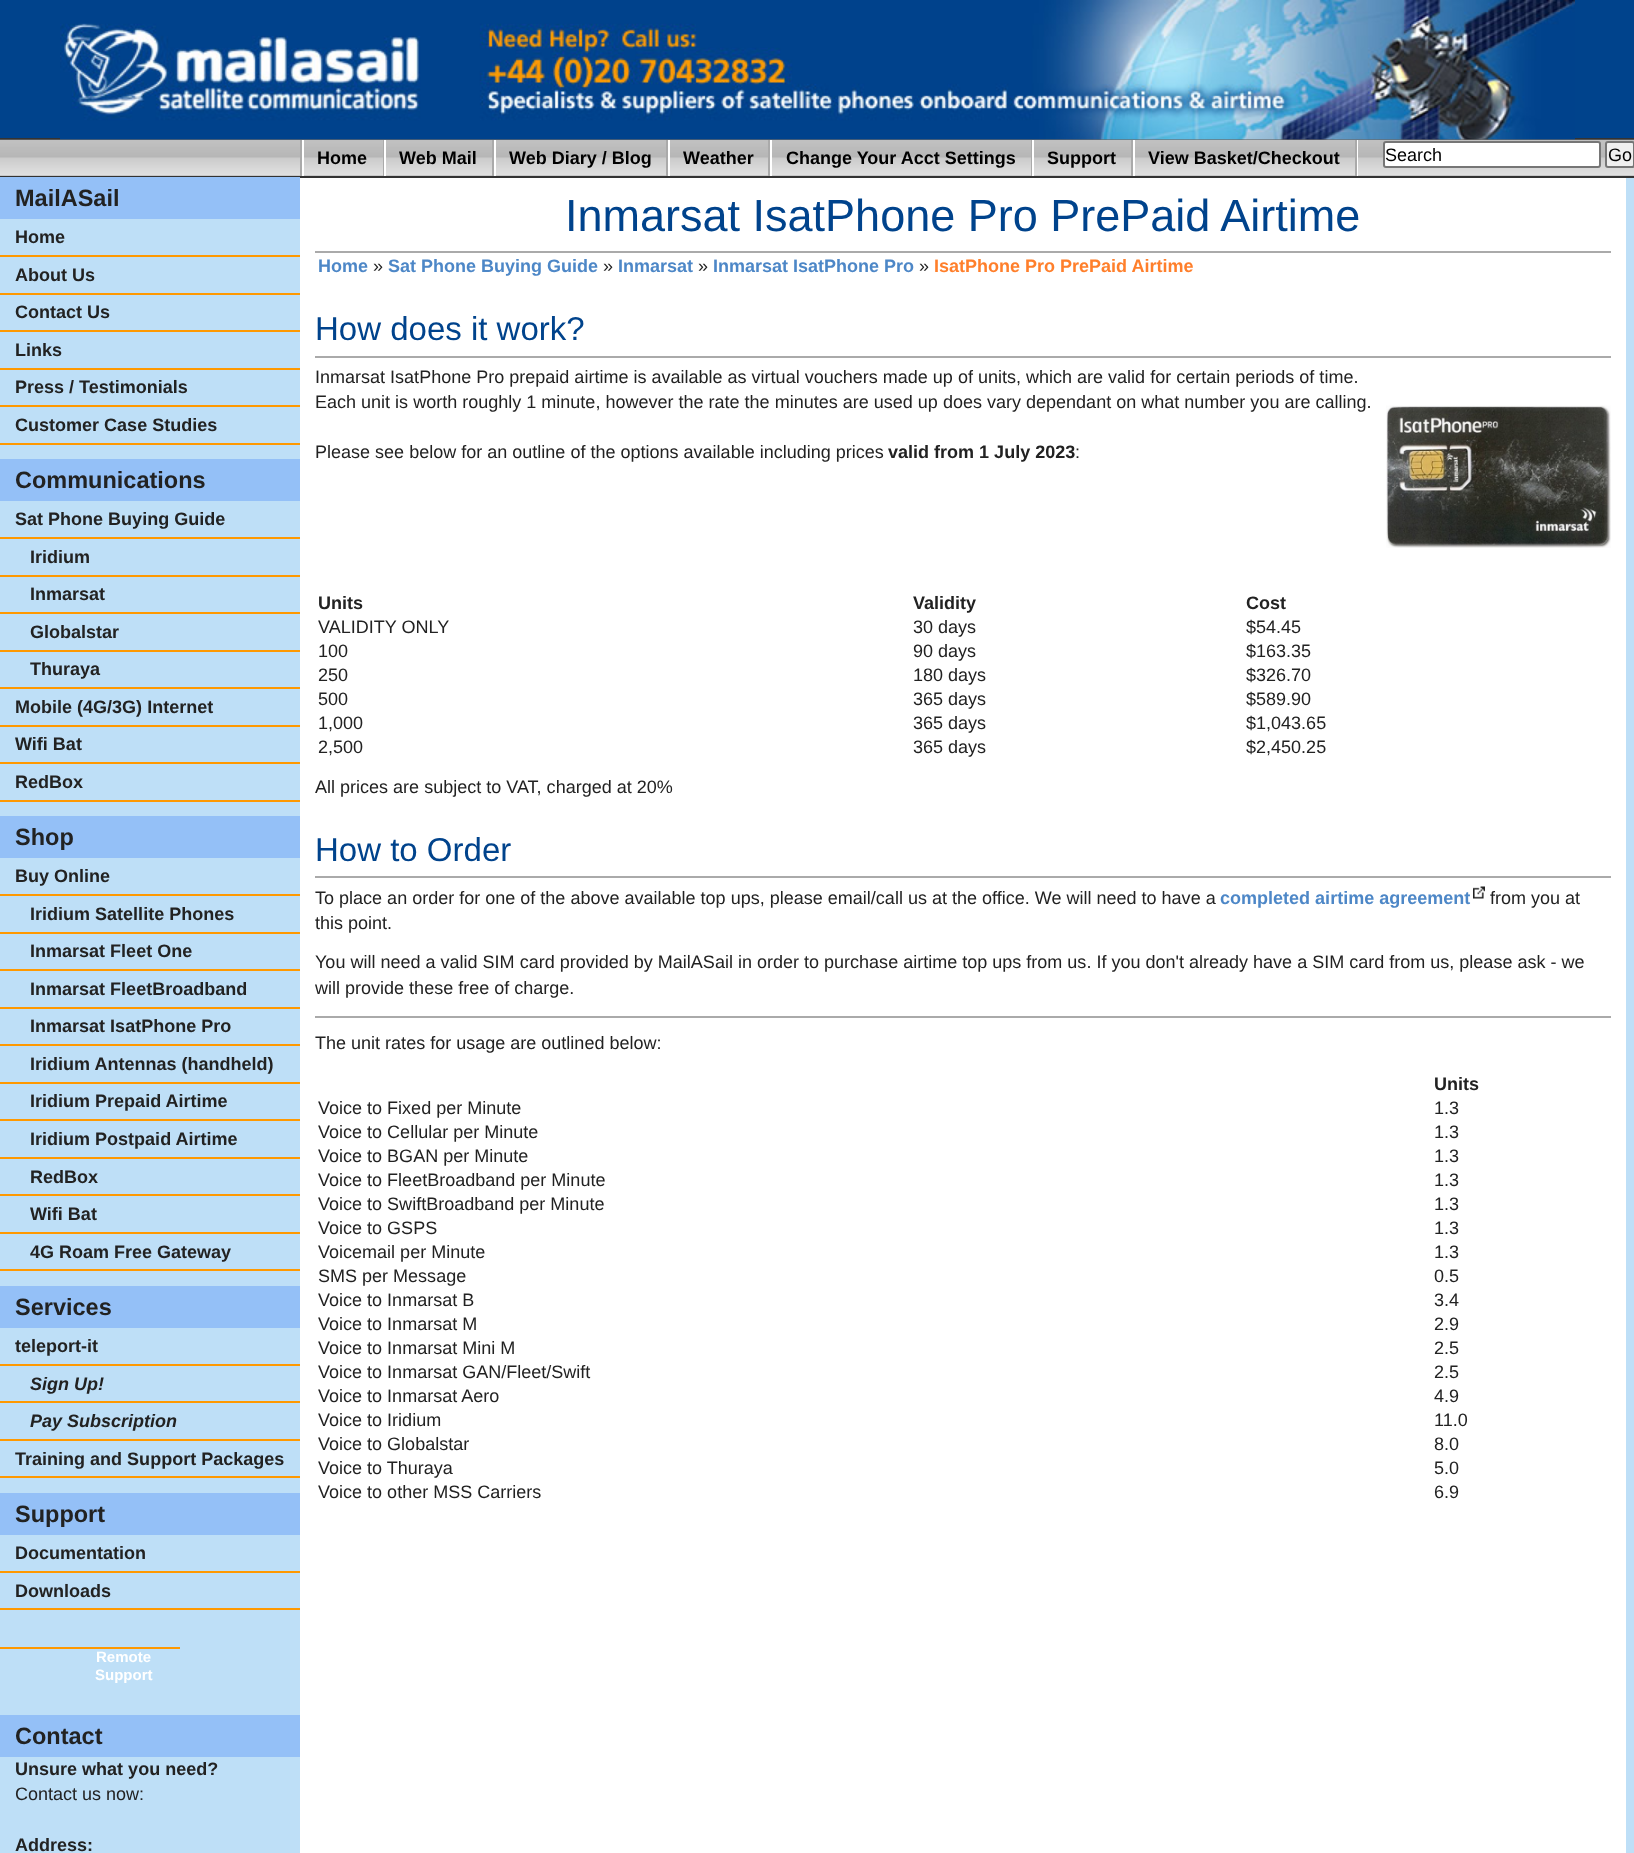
<svg xmlns="http://www.w3.org/2000/svg" width="1634" height="1853" viewBox="0 0 1634 1853">
  <rect width="100%" height="100%" fill="#ffffff"/>
  <rect x="0" y="0" width="1634" height="138" fill="#00438c"/>
  <rect x="0" y="138" width="1634" height="2" fill="#333333"/>
  <image x="60" y="0" width="1515" height="140" href="img1.png"/>
  <rect x="1626" y="177" width="8" height="1676" fill="#bedff7"/>
  <rect x="0" y="176" width="1634" height="2" fill="#333333"/>
  <rect x="0" y="175" width="1634" height="1" fill="#c0c0c0"/>
  <image x="0" y="139" width="1634" height="37" href="img2.png"/>
  <rect x="1357" y="140" width="1" height="36" fill="#ffffff"/>
  <rect x="300" y="140" width="2" height="36" fill="#aaaaaa"/>
  <rect x="383" y="140" width="1" height="36" fill="#aaaaaa"/>
  <rect x="302" y="140" width="2" height="36" fill="#ffffff"/>
  <text x="317" y="164" font-family="Liberation Sans" font-size="18" font-weight="bold" fill="#000000">Home</text>
  <rect x="492" y="140" width="2" height="36" fill="#aaaaaa"/>
  <rect x="384" y="140" width="2" height="36" fill="#ffffff"/>
  <text x="399" y="164" font-family="Liberation Sans" font-size="18" font-weight="bold" fill="#000000">Web Mail</text>
  <rect x="666" y="140" width="2" height="36" fill="#aaaaaa"/>
  <rect x="494" y="140" width="2" height="36" fill="#ffffff"/>
  <text x="509" y="164" font-family="Liberation Sans" font-size="18" font-weight="bold" fill="#000000">Web Diary / Blog</text>
  <rect x="768" y="140" width="2" height="36" fill="#aaaaaa"/>
  <rect x="668" y="140" width="2" height="36" fill="#ffffff"/>
  <text x="683" y="164" font-family="Liberation Sans" font-size="18" font-weight="bold" fill="#000000">Weather</text>
  <rect x="1031" y="140" width="1" height="36" fill="#aaaaaa"/>
  <rect x="770" y="140" width="2" height="36" fill="#ffffff"/>
  <text x="786" y="164" font-family="Liberation Sans" font-size="18" font-weight="bold" fill="#000000">Change Your Acct Settings</text>
  <rect x="1131" y="140" width="2" height="36" fill="#aaaaaa"/>
  <rect x="1032" y="140" width="2" height="36" fill="#ffffff"/>
  <text x="1047" y="164" font-family="Liberation Sans" font-size="18" font-weight="bold" fill="#000000">Support</text>
  <rect x="1355" y="140" width="2" height="36" fill="#aaaaaa"/>
  <rect x="1133" y="140" width="2" height="36" fill="#ffffff"/>
  <text x="1148" y="164" font-family="Liberation Sans" font-size="18" font-weight="bold" fill="#000000">View Basket/Checkout</text>
  <rect x="1384" y="142" width="216" height="25" rx="2" fill="#ffffff" stroke="#767676" stroke-width="2"/>
  <text x="1385" y="161" font-family="Liberation Sans" font-size="18" fill="#000000">Search</text>
  <rect x="1606" y="142" width="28" height="25" rx="2" fill="#efefef" stroke="#767676" stroke-width="2"/>
  <text x="1608" y="161" font-family="Liberation Sans" font-size="18" fill="#000000">Go</text>
  <rect x="0" y="177" width="300" height="42" fill="#94c0f7"/>
  <text x="15" y="206" font-family="Liberation Sans" font-size="23.5" font-weight="bold" fill="#222222">MailASail</text>
  <rect x="0" y="219" width="300" height="1634" fill="#bedff7"/>
  <rect x="0" y="255" width="300" height="2" fill="#ff9900"/>
  <text x="15" y="243" font-family="Liberation Sans" font-size="18.02" font-weight="bold" fill="#222222">Home</text>
  <rect x="0" y="293" width="300" height="2" fill="#ff9900"/>
  <text x="15" y="281" font-family="Liberation Sans" font-size="18.02" font-weight="bold" fill="#222222">About Us</text>
  <rect x="0" y="330" width="300" height="2" fill="#ff9900"/>
  <text x="15" y="318" font-family="Liberation Sans" font-size="18.02" font-weight="bold" fill="#222222">Contact Us</text>
  <rect x="0" y="368" width="300" height="2" fill="#ff9900"/>
  <text x="15" y="356" font-family="Liberation Sans" font-size="18.02" font-weight="bold" fill="#222222">Links</text>
  <rect x="0" y="405" width="300" height="2" fill="#ff9900"/>
  <text x="15" y="393" font-family="Liberation Sans" font-size="18.02" font-weight="bold" fill="#222222">Press / Testimonials</text>
  <rect x="0" y="443" width="300" height="2" fill="#ff9900"/>
  <text x="15" y="431" font-family="Liberation Sans" font-size="18.02" font-weight="bold" fill="#222222">Customer Case Studies</text>
  <rect x="0" y="459" width="300" height="42" fill="#94c0f7"/>
  <text x="15" y="488" font-family="Liberation Sans" font-size="23.5" font-weight="bold" fill="#222222">Communications</text>
  <rect x="0" y="537" width="300" height="2" fill="#ff9900"/>
  <text x="15" y="525" font-family="Liberation Sans" font-size="18.02" font-weight="bold" fill="#222222">Sat Phone Buying Guide</text>
  <rect x="0" y="575" width="300" height="2" fill="#ff9900"/>
  <text x="30" y="563" font-family="Liberation Sans" font-size="18.02" font-weight="bold" fill="#222222">Iridium</text>
  <rect x="0" y="612" width="300" height="2" fill="#ff9900"/>
  <text x="30" y="600" font-family="Liberation Sans" font-size="18.02" font-weight="bold" fill="#222222">Inmarsat</text>
  <rect x="0" y="650" width="300" height="2" fill="#ff9900"/>
  <text x="30" y="638" font-family="Liberation Sans" font-size="18.02" font-weight="bold" fill="#222222">Globalstar</text>
  <rect x="0" y="687" width="300" height="2" fill="#ff9900"/>
  <text x="30" y="675" font-family="Liberation Sans" font-size="18.02" font-weight="bold" fill="#222222">Thuraya</text>
  <rect x="0" y="725" width="300" height="2" fill="#ff9900"/>
  <text x="15" y="713" font-family="Liberation Sans" font-size="18.02" font-weight="bold" fill="#222222">Mobile (4G/3G) Internet</text>
  <rect x="0" y="762" width="300" height="2" fill="#ff9900"/>
  <text x="15" y="750" font-family="Liberation Sans" font-size="18.02" font-weight="bold" fill="#222222">Wifi Bat</text>
  <rect x="0" y="800" width="300" height="2" fill="#ff9900"/>
  <text x="15" y="788" font-family="Liberation Sans" font-size="18.02" font-weight="bold" fill="#222222">RedBox</text>
  <rect x="0" y="816" width="300" height="42" fill="#94c0f7"/>
  <text x="15" y="845" font-family="Liberation Sans" font-size="23.5" font-weight="bold" fill="#222222">Shop</text>
  <rect x="0" y="894" width="300" height="2" fill="#ff9900"/>
  <text x="15" y="882" font-family="Liberation Sans" font-size="18.02" font-weight="bold" fill="#222222">Buy Online</text>
  <rect x="0" y="932" width="300" height="2" fill="#ff9900"/>
  <text x="30" y="920" font-family="Liberation Sans" font-size="18.02" font-weight="bold" fill="#222222">Iridium Satellite Phones</text>
  <rect x="0" y="969" width="300" height="2" fill="#ff9900"/>
  <text x="30" y="957" font-family="Liberation Sans" font-size="18.02" font-weight="bold" fill="#222222">Inmarsat Fleet One</text>
  <rect x="0" y="1007" width="300" height="2" fill="#ff9900"/>
  <text x="30" y="995" font-family="Liberation Sans" font-size="18.02" font-weight="bold" fill="#222222">Inmarsat FleetBroadband</text>
  <rect x="0" y="1044" width="300" height="2" fill="#ff9900"/>
  <text x="30" y="1032" font-family="Liberation Sans" font-size="18.02" font-weight="bold" fill="#222222">Inmarsat IsatPhone Pro</text>
  <rect x="0" y="1082" width="300" height="2" fill="#ff9900"/>
  <text x="30" y="1070" font-family="Liberation Sans" font-size="18.02" font-weight="bold" fill="#222222">Iridium Antennas (handheld)</text>
  <rect x="0" y="1119" width="300" height="2" fill="#ff9900"/>
  <text x="30" y="1107" font-family="Liberation Sans" font-size="18.02" font-weight="bold" fill="#222222">Iridium Prepaid Airtime</text>
  <rect x="0" y="1157" width="300" height="2" fill="#ff9900"/>
  <text x="30" y="1145" font-family="Liberation Sans" font-size="18.02" font-weight="bold" fill="#222222">Iridium Postpaid Airtime</text>
  <rect x="0" y="1194" width="300" height="2" fill="#ff9900"/>
  <text x="30" y="1183" font-family="Liberation Sans" font-size="18.02" font-weight="bold" fill="#222222">RedBox</text>
  <rect x="0" y="1232" width="300" height="2" fill="#ff9900"/>
  <text x="30" y="1220" font-family="Liberation Sans" font-size="18.02" font-weight="bold" fill="#222222">Wifi Bat</text>
  <rect x="0" y="1269" width="300" height="2" fill="#ff9900"/>
  <text x="30" y="1258" font-family="Liberation Sans" font-size="18" font-weight="bold" fill="#222222">4G Roam Free Gateway</text>
  <rect x="0" y="1286" width="300" height="42" fill="#94c0f7"/>
  <text x="15" y="1315" font-family="Liberation Sans" font-size="23.5" font-weight="bold" fill="#222222">Services</text>
  <rect x="0" y="1364" width="300" height="2" fill="#ff9900"/>
  <text x="15" y="1352" font-family="Liberation Sans" font-size="18.02" font-weight="bold" fill="#222222">teleport-it</text>
  <rect x="0" y="1401" width="300" height="2" fill="#ff9900"/>
  <text x="30" y="1390" font-family="Liberation Sans" font-size="18" font-weight="bold" font-style="italic" fill="#222222">Sign Up!</text>
  <rect x="0" y="1439" width="300" height="2" fill="#ff9900"/>
  <text x="30" y="1427" font-family="Liberation Sans" font-size="18" font-weight="bold" font-style="italic" fill="#222222">Pay Subscription</text>
  <rect x="0" y="1476" width="300" height="2" fill="#ff9900"/>
  <text x="15" y="1465" font-family="Liberation Sans" font-size="18.02" font-weight="bold" fill="#222222">Training and Support Packages</text>
  <rect x="0" y="1493" width="300" height="42" fill="#94c0f7"/>
  <text x="15" y="1522" font-family="Liberation Sans" font-size="23.5" font-weight="bold" fill="#222222">Support</text>
  <rect x="0" y="1571" width="300" height="2" fill="#ff9900"/>
  <text x="15" y="1559" font-family="Liberation Sans" font-size="18.02" font-weight="bold" fill="#222222">Documentation</text>
  <rect x="0" y="1608" width="300" height="2" fill="#ff9900"/>
  <text x="15" y="1597" font-family="Liberation Sans" font-size="18.02" font-weight="bold" fill="#222222">Downloads</text>
  <rect x="0" y="1647" width="180" height="2" fill="#ff9900"/>
  <text x="96" y="1662" font-family="Liberation Sans" font-size="15" font-weight="bold" fill="#ffffff">Remote</text>
  <text x="95" y="1680" font-family="Liberation Sans" font-size="15" font-weight="bold" fill="#ffffff">Support</text>
  <rect x="0" y="1715" width="300" height="42" fill="#94c0f7"/>
  <text x="15" y="1744" font-family="Liberation Sans" font-size="23.5" font-weight="bold" fill="#222222">Contact</text>
  <text x="15" y="1775" font-family="Liberation Sans" font-size="18.02" font-weight="bold" fill="#222222">Unsure what you need?</text>
  <text x="15" y="1800" font-family="Liberation Sans" font-size="18" fill="#222222">Contact us now:</text>
  <text x="15" y="1851" font-family="Liberation Sans" font-size="18.02" font-weight="bold" fill="#222222">Address:</text>
  <rect x="315" y="251" width="1296" height="2" fill="#aaaaaa"/>
  <text x="565" y="231" font-family="Liberation Sans" font-size="45" fill="#00438c">Inmarsat IsatPhone Pro PrePaid Airtime</text>
  <text x="318" y="272" font-family="Liberation Sans" font-size="18" font-weight="bold" fill="#4d87c7">Home</text>
  <text x="373" y="272" font-family="Liberation Sans" font-size="18.02" fill="#222222">»</text>
  <text x="388" y="272" font-family="Liberation Sans" font-size="18" font-weight="bold" fill="#4d87c7">Sat Phone Buying Guide</text>
  <text x="603" y="272" font-family="Liberation Sans" font-size="18.02" fill="#222222">»</text>
  <text x="618" y="272" font-family="Liberation Sans" font-size="18" font-weight="bold" fill="#4d87c7">Inmarsat</text>
  <text x="698" y="272" font-family="Liberation Sans" font-size="18.02" fill="#222222">»</text>
  <text x="713" y="272" font-family="Liberation Sans" font-size="18" font-weight="bold" fill="#4d87c7">Inmarsat IsatPhone Pro</text>
  <text x="919" y="272" font-family="Liberation Sans" font-size="18.02" fill="#222222">»</text>
  <text x="934" y="272" font-family="Liberation Sans" font-size="18" font-weight="bold" fill="#ff7f2b">IsatPhone Pro PrePaid Airtime</text>
  <rect x="315" y="356" width="1296" height="2" fill="#aaaaaa"/>
  <text x="315" y="340" font-family="Liberation Sans" font-size="33" fill="#00438c">How does it work?</text>
  <text x="315" y="383" font-family="Liberation Sans" font-size="18.02" fill="#222222">Inmarsat IsatPhone Pro prepaid airtime is available as virtual vouchers made up of units, which are valid for certain periods of time.</text>
  <text x="315" y="408" font-family="Liberation Sans" font-size="18.02" fill="#222222">Each unit is worth roughly 1 minute, however the rate the minutes are used up does vary dependant on what number you are calling.</text>
  <text x="315" y="458" font-family="Liberation Sans" font-size="18.02" fill="#222222">Please see below for an outline of the options available including prices</text>
  <text x="888" y="458" font-family="Liberation Sans" font-size="18.02" font-weight="bold" fill="#222222">valid from 1 July 2023</text>
  <text x="1075" y="458" font-family="Liberation Sans" font-size="18.02" fill="#222222">:</text>
  <image x="1386" y="405" width="225" height="143" href="img3.png"/>
  <text x="318" y="609" font-family="Liberation Sans" font-size="18.02" font-weight="bold" fill="#222222">Units</text>
  <text x="913" y="609" font-family="Liberation Sans" font-size="18.02" font-weight="bold" fill="#222222">Validity</text>
  <text x="1246" y="609" font-family="Liberation Sans" font-size="18.02" font-weight="bold" fill="#222222">Cost</text>
  <text x="318" y="633" font-family="Liberation Sans" font-size="18.02" fill="#222222">VALIDITY ONLY</text>
  <text x="913" y="633" font-family="Liberation Sans" font-size="18.02" fill="#222222">30 days</text>
  <text x="1246" y="633" font-family="Liberation Sans" font-size="18.02" fill="#222222">$54.45</text>
  <text x="318" y="657" font-family="Liberation Sans" font-size="18.02" fill="#222222">100</text>
  <text x="913" y="657" font-family="Liberation Sans" font-size="18.02" fill="#222222">90 days</text>
  <text x="1246" y="657" font-family="Liberation Sans" font-size="18.02" fill="#222222">$163.35</text>
  <text x="318" y="681" font-family="Liberation Sans" font-size="18.02" fill="#222222">250</text>
  <text x="913" y="681" font-family="Liberation Sans" font-size="18.02" fill="#222222">180 days</text>
  <text x="1246" y="681" font-family="Liberation Sans" font-size="18.02" fill="#222222">$326.70</text>
  <text x="318" y="705" font-family="Liberation Sans" font-size="18.02" fill="#222222">500</text>
  <text x="913" y="705" font-family="Liberation Sans" font-size="18.02" fill="#222222">365 days</text>
  <text x="1246" y="705" font-family="Liberation Sans" font-size="18.02" fill="#222222">$589.90</text>
  <text x="318" y="729" font-family="Liberation Sans" font-size="18.02" fill="#222222">1,000</text>
  <text x="913" y="729" font-family="Liberation Sans" font-size="18.02" fill="#222222">365 days</text>
  <text x="1246" y="729" font-family="Liberation Sans" font-size="18.02" fill="#222222">$1,043.65</text>
  <text x="318" y="753" font-family="Liberation Sans" font-size="18.02" fill="#222222">2,500</text>
  <text x="913" y="753" font-family="Liberation Sans" font-size="18.02" fill="#222222">365 days</text>
  <text x="1246" y="753" font-family="Liberation Sans" font-size="18.02" fill="#222222">$2,450.25</text>
  <text x="315" y="793" font-family="Liberation Sans" font-size="18.02" fill="#222222">All prices are subject to VAT, charged at 20%</text>
  <rect x="315" y="876" width="1296" height="2" fill="#aaaaaa"/>
  <text x="315" y="861" font-family="Liberation Sans" font-size="33" fill="#00438c">How to Order</text>
  <text x="315" y="904" font-family="Liberation Sans" font-size="18.02" fill="#222222">To place an order for one of the above available top ups, please email/call us at the office. We will need to have a</text>
  <text x="1220" y="904" font-family="Liberation Sans" font-size="18.02" font-weight="bold" fill="#4d87c7">completed airtime agreement</text>
  <image x="1473" y="886" width="12" height="13" href="img4.png"/>
  <text x="1490" y="904" font-family="Liberation Sans" font-size="18.02" fill="#222222">from you at</text>
  <text x="315" y="929" font-family="Liberation Sans" font-size="18.02" fill="#222222">this point.</text>
  <text x="315" y="968" font-family="Liberation Sans" font-size="18.02" fill="#222222">You will need a valid SIM card provided by MailASail in order to purchase airtime top ups from us. If you don't already have a SIM card from us, please ask - we</text>
  <text x="315" y="994" font-family="Liberation Sans" font-size="18.02" fill="#222222">will provide these free of charge.</text>
  <rect x="315" y="1016" width="1296" height="2" fill="#aaaaaa"/>
  <text x="315" y="1049" font-family="Liberation Sans" font-size="18.02" fill="#222222">The unit rates for usage are outlined below:</text>
  <text x="1434" y="1090" font-family="Liberation Sans" font-size="18.02" font-weight="bold" fill="#222222">Units</text>
  <text x="318" y="1114" font-family="Liberation Sans" font-size="18.02" fill="#222222">Voice to Fixed per Minute</text>
  <text x="1434" y="1114" font-family="Liberation Sans" font-size="18.02" fill="#222222">1.3</text>
  <text x="318" y="1138" font-family="Liberation Sans" font-size="18.02" fill="#222222">Voice to Cellular per Minute</text>
  <text x="1434" y="1138" font-family="Liberation Sans" font-size="18.02" fill="#222222">1.3</text>
  <text x="318" y="1162" font-family="Liberation Sans" font-size="18.02" fill="#222222">Voice to BGAN per Minute</text>
  <text x="1434" y="1162" font-family="Liberation Sans" font-size="18.02" fill="#222222">1.3</text>
  <text x="318" y="1186" font-family="Liberation Sans" font-size="18.02" fill="#222222">Voice to FleetBroadband per Minute</text>
  <text x="1434" y="1186" font-family="Liberation Sans" font-size="18.02" fill="#222222">1.3</text>
  <text x="318" y="1210" font-family="Liberation Sans" font-size="18.02" fill="#222222">Voice to SwiftBroadband per Minute</text>
  <text x="1434" y="1210" font-family="Liberation Sans" font-size="18.02" fill="#222222">1.3</text>
  <text x="318" y="1234" font-family="Liberation Sans" font-size="18.02" fill="#222222">Voice to GSPS</text>
  <text x="1434" y="1234" font-family="Liberation Sans" font-size="18.02" fill="#222222">1.3</text>
  <text x="318" y="1258" font-family="Liberation Sans" font-size="18.02" fill="#222222">Voicemail per Minute</text>
  <text x="1434" y="1258" font-family="Liberation Sans" font-size="18.02" fill="#222222">1.3</text>
  <text x="318" y="1282" font-family="Liberation Sans" font-size="18.02" fill="#222222">SMS per Message</text>
  <text x="1434" y="1282" font-family="Liberation Sans" font-size="18.02" fill="#222222">0.5</text>
  <text x="318" y="1306" font-family="Liberation Sans" font-size="18.02" fill="#222222">Voice to Inmarsat B</text>
  <text x="1434" y="1306" font-family="Liberation Sans" font-size="18.02" fill="#222222">3.4</text>
  <text x="318" y="1330" font-family="Liberation Sans" font-size="18.02" fill="#222222">Voice to Inmarsat M</text>
  <text x="1434" y="1330" font-family="Liberation Sans" font-size="18.02" fill="#222222">2.9</text>
  <text x="318" y="1354" font-family="Liberation Sans" font-size="18.02" fill="#222222">Voice to Inmarsat Mini M</text>
  <text x="1434" y="1354" font-family="Liberation Sans" font-size="18.02" fill="#222222">2.5</text>
  <text x="318" y="1378" font-family="Liberation Sans" font-size="18.02" fill="#222222">Voice to Inmarsat GAN/Fleet/Swift</text>
  <text x="1434" y="1378" font-family="Liberation Sans" font-size="18.02" fill="#222222">2.5</text>
  <text x="318" y="1402" font-family="Liberation Sans" font-size="18.02" fill="#222222">Voice to Inmarsat Aero</text>
  <text x="1434" y="1402" font-family="Liberation Sans" font-size="18.02" fill="#222222">4.9</text>
  <text x="318" y="1426" font-family="Liberation Sans" font-size="18.02" fill="#222222">Voice to Iridium</text>
  <text x="1434" y="1426" font-family="Liberation Sans" font-size="18.02" fill="#222222">11.0</text>
  <text x="318" y="1450" font-family="Liberation Sans" font-size="18.02" fill="#222222">Voice to Globalstar</text>
  <text x="1434" y="1450" font-family="Liberation Sans" font-size="18.02" fill="#222222">8.0</text>
  <text x="318" y="1474" font-family="Liberation Sans" font-size="18.02" fill="#222222">Voice to Thuraya</text>
  <text x="1434" y="1474" font-family="Liberation Sans" font-size="18.02" fill="#222222">5.0</text>
  <text x="318" y="1498" font-family="Liberation Sans" font-size="18.02" fill="#222222">Voice to other MSS Carriers</text>
  <text x="1434" y="1498" font-family="Liberation Sans" font-size="18.02" fill="#222222">6.9</text>
</svg>
